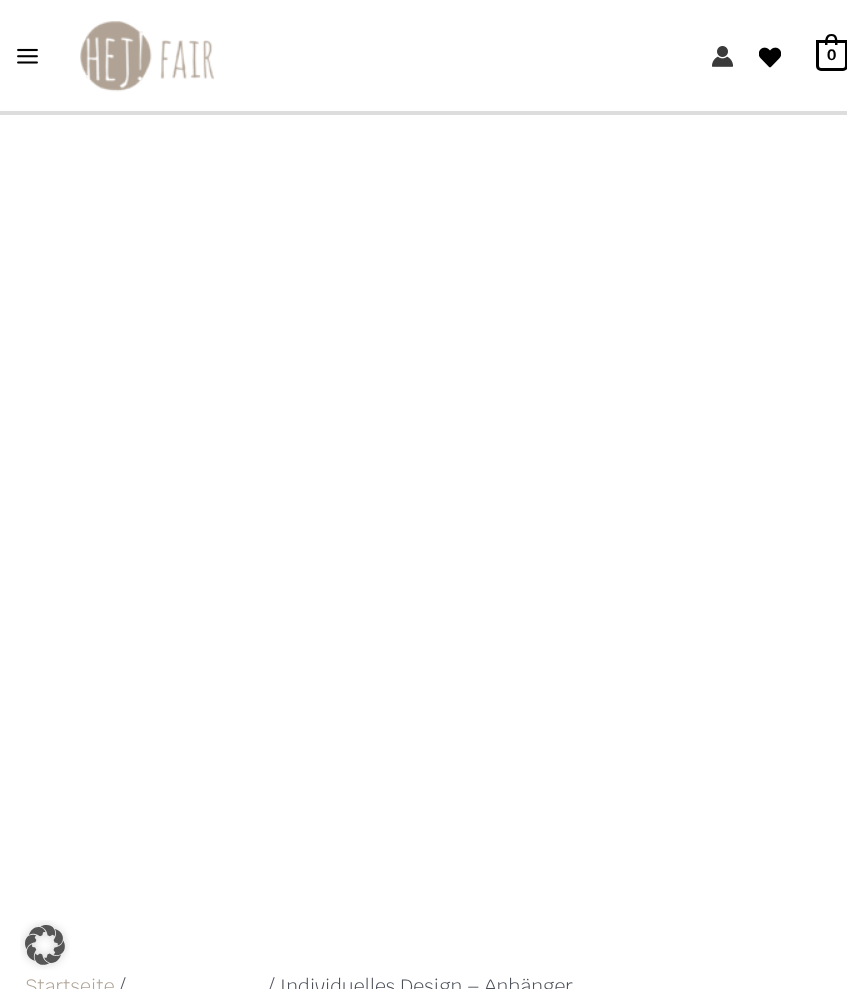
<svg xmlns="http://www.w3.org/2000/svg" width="847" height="989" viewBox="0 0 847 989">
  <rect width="100%" height="100%" fill="#ffffff"/>
  <rect x="0" y="111" width="847" height="4" fill="#dddddd"/>
  <image x="17" y="48" width="21" height="16" href="img1.png"/>
  <image x="80" y="21" width="135" height="71" href="img2.png"/>
  <image x="712" y="46" width="22" height="21" href="img3.png"/>
  <image x="759" y="47" width="22" height="21" href="img4.png"/>
  <path d="M817.5 41.5H846.5V66C846.5 68 845 69.5 843 69.5H821C819 69.5 817.5 68 817.5 66Z" fill="none" stroke="#000000" stroke-width="3"/>
  <path d="M831.5 34C838 34 837.5 40.5 837.5 45H825C825 40.5 825 34 831.5 34ZM831.5 36C836 36 835 42 835 45H827.5C827.5 42 827 36 831.5 36Z" fill="#000000" fill-rule="evenodd"/>
  <text x="827" y="60" font-family="Krub" font-size="15" font-weight="bold" fill="#000000">0</text>
  <text x="25" y="993" font-family="Krub" font-size="19.4" font-weight="300" fill="#b0a395">Startseite</text>
  <text x="119" y="993" font-family="Krub" font-size="19.4" font-weight="300" fill="#4b4f58">/</text>
  <text x="268" y="993" font-family="Krub" font-size="19.4" font-weight="300" fill="#4b4f58">/ Individuelles Design – Anhänger</text>
  <image x="20" y="920" width="50" height="50" href="img5.png"/>
</svg>
